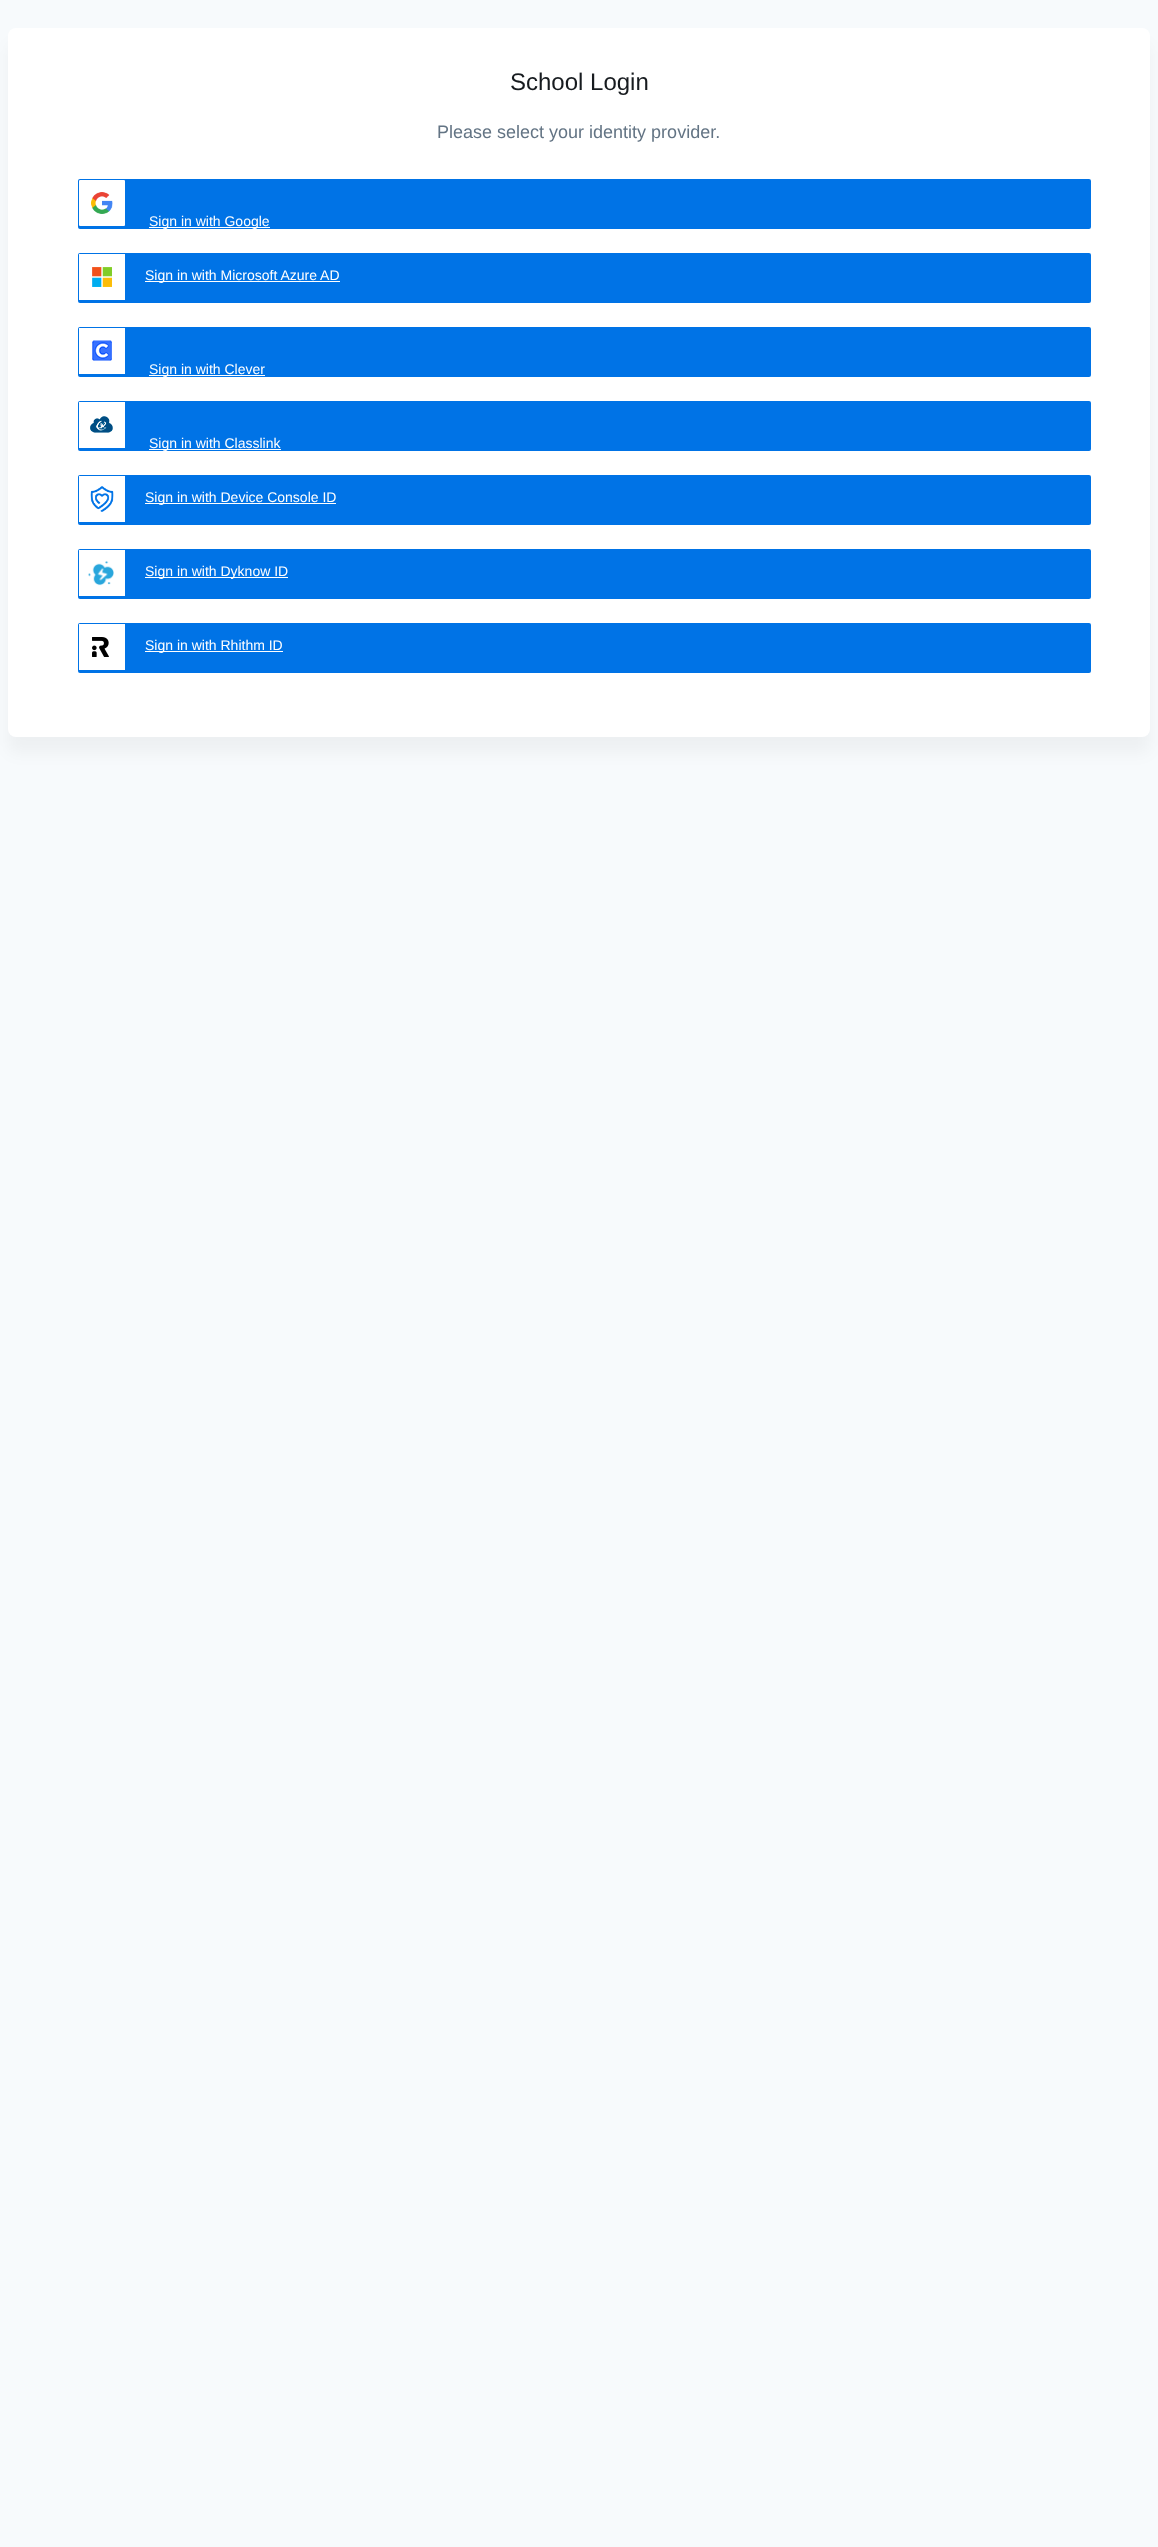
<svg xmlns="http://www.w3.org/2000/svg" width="1158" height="2547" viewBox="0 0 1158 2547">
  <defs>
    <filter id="blur1" x="-50%" y="-200%" width="200%" height="500%"><feGaussianBlur stdDeviation="8"/></filter>
  </defs>
  <rect width="100%" height="100%" fill="#f7fafc"/>
  <rect x="8" y="44" width="1142" height="709" rx="8" fill="#000000" fill-opacity="0.04" filter="url(#blur1)"/>
  <rect x="8" y="28" width="1142" height="709" rx="8" fill="#ffffff"/>
  <text x="510" y="90" font-family="Liberation Sans" font-size="24" fill="#171b1f">School Login</text>
  <text x="437" y="138" font-family="Liberation Sans" font-size="18" fill="#637484">Please select your identity provider.</text>
  <rect x="78" y="179" width="1013" height="50" rx="2" fill="#0073e6"/>
  <image x="79" y="180" width="46" height="46" href="img1.png"/>
  <rect x="149" y="227" width="121" height="1" fill="#ffffff"/>
  <text x="149" y="226" font-family="Liberation Sans" font-size="14" fill="#ffffff">Sign in with Google</text>
  <rect x="78" y="253" width="1013" height="50" rx="2" fill="#0073e6"/>
  <rect x="79" y="254" width="46" height="46" fill="#ffffff"/>
  <image x="92" y="267" width="20" height="20" href="img2.png"/>
  <rect x="145" y="281" width="195" height="1" fill="#ffffff"/>
  <text x="145" y="280" font-family="Liberation Sans" font-size="14" fill="#ffffff">Sign in with Microsoft Azure AD</text>
  <rect x="78" y="327" width="1013" height="50" rx="2" fill="#0073e6"/>
  <image x="79" y="328" width="46" height="46" href="img3.png"/>
  <rect x="149" y="375" width="116" height="1" fill="#ffffff"/>
  <text x="149" y="374" font-family="Liberation Sans" font-size="14" fill="#ffffff">Sign in with Clever</text>
  <rect x="78" y="401" width="1013" height="50" rx="2" fill="#0073e6"/>
  <image x="79" y="402" width="46" height="46" href="img4.png"/>
  <rect x="149" y="449" width="132" height="1" fill="#ffffff"/>
  <text x="149" y="448" font-family="Liberation Sans" font-size="14" fill="#ffffff">Sign in with Classlink</text>
  <rect x="78" y="475" width="1013" height="50" rx="2" fill="#0073e6"/>
  <rect x="79" y="476" width="46" height="46" fill="#ffffff"/>
  <image x="90" y="486" width="24" height="26" href="img5.png"/>
  <rect x="145" y="503" width="191" height="1" fill="#ffffff"/>
  <text x="145" y="502" font-family="Liberation Sans" font-size="14" fill="#ffffff">Sign in with Device Console ID</text>
  <rect x="78" y="549" width="1013" height="50" rx="2" fill="#0073e6"/>
  <rect x="79" y="550" width="46" height="46" fill="#ffffff"/>
  <image x="88" y="561" width="26" height="25" href="img6.png"/>
  <rect x="145" y="577" width="143" height="1" fill="#ffffff"/>
  <text x="145" y="576" font-family="Liberation Sans" font-size="14" fill="#ffffff">Sign in with Dyknow ID</text>
  <rect x="78" y="623" width="1013" height="50" rx="2" fill="#0073e6"/>
  <rect x="79" y="624" width="46" height="46" fill="#ffffff"/>
  <image x="92" y="637" width="17" height="20" href="img7.png"/>
  <rect x="145" y="651" width="138" height="1" fill="#ffffff"/>
  <text x="145" y="650" font-family="Liberation Sans" font-size="14" fill="#ffffff">Sign in with Rhithm ID</text>
</svg>
